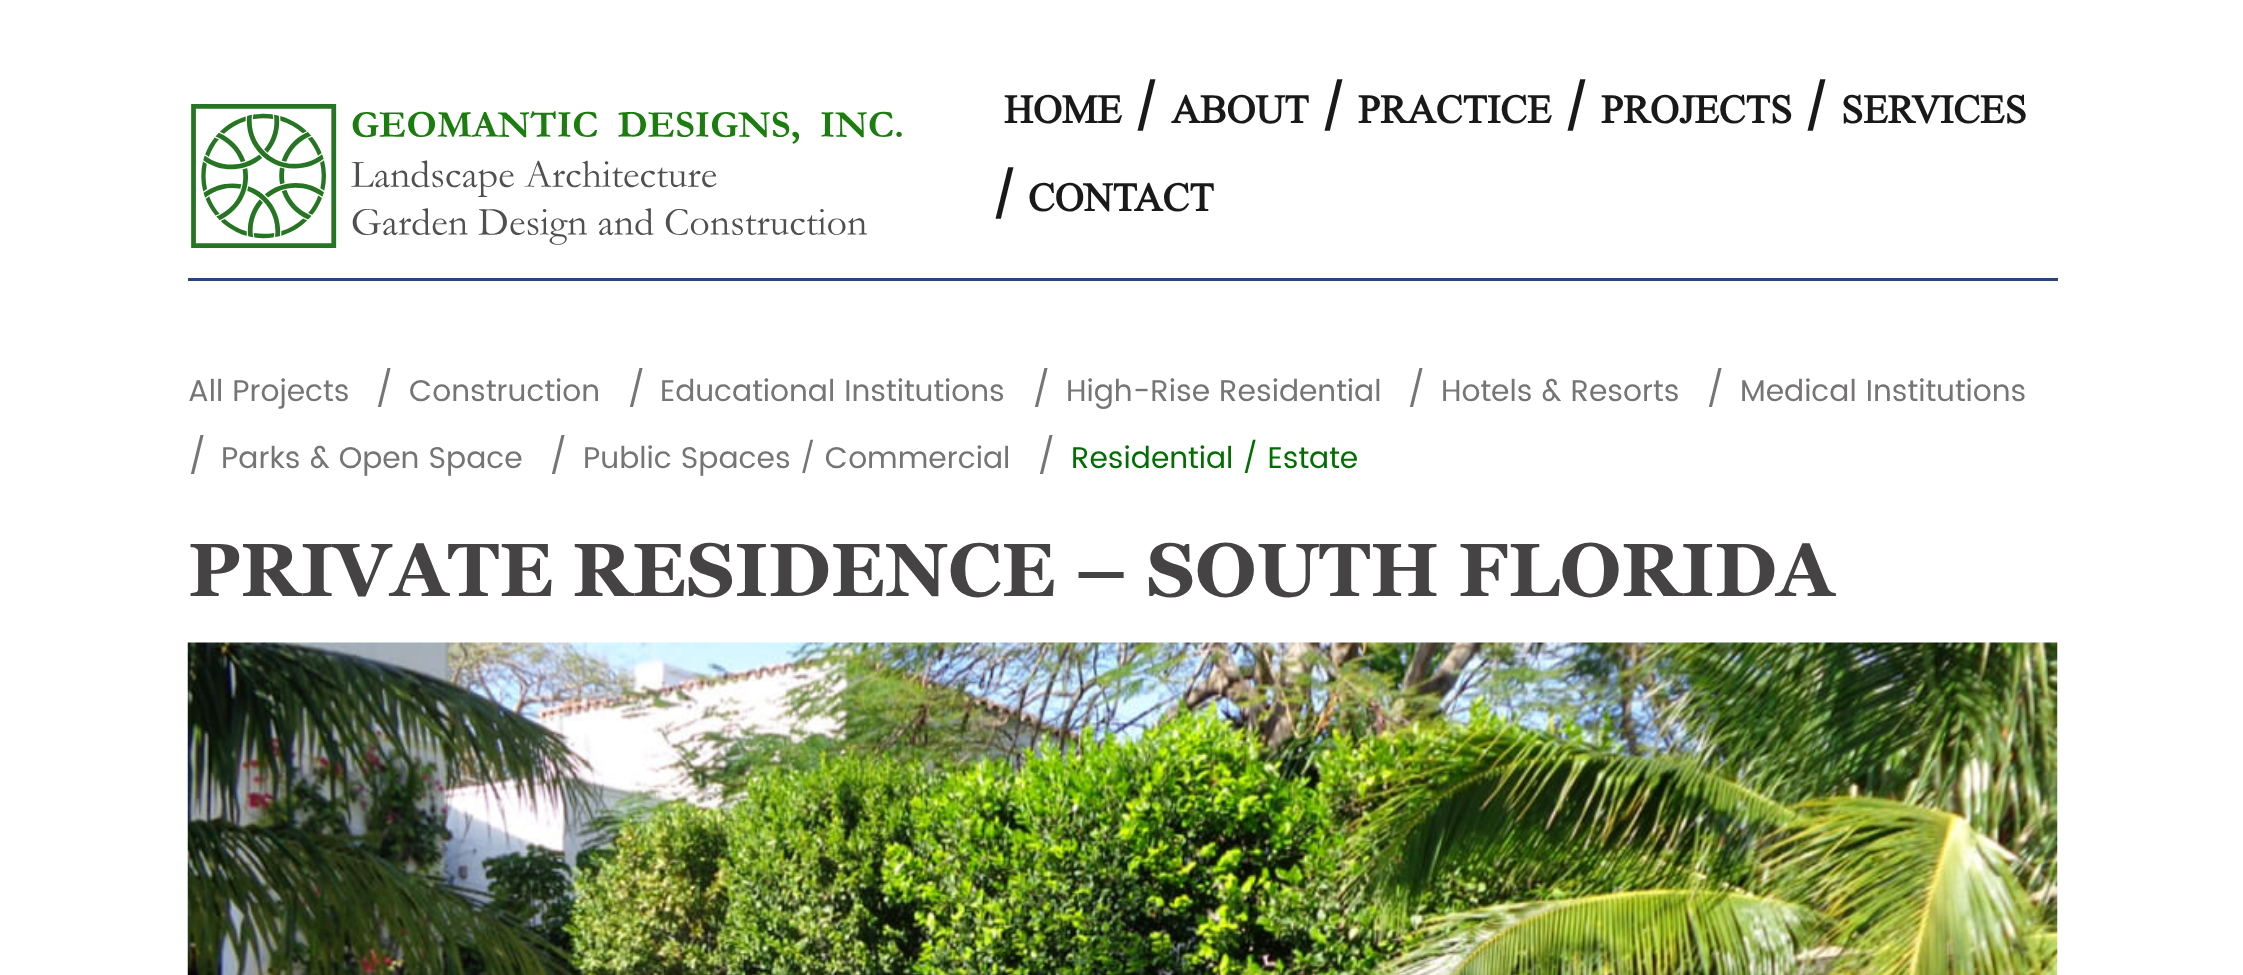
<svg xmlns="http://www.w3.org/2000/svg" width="2243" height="975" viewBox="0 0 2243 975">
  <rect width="100%" height="100%" fill="#ffffff"/>
  <rect x="188" y="278" width="1870" height="3" fill="#2b4579"/>
  <image x="191" y="104" width="711" height="144" href="img1.png"/>
  <text x="1004" y="123" font-family="Times New Roman" font-size="40" font-weight="bold" fill="#191919">HOME</text>
  <text x="1134" y="123" font-family="Poppins" font-size="45" font-weight="bold" fill="#191919">/</text>
  <text x="1171" y="123" font-family="Times New Roman" font-size="40" font-weight="bold" fill="#191919">ABOUT</text>
  <text x="1321" y="123" font-family="Poppins" font-size="45" font-weight="bold" fill="#191919">/</text>
  <text x="1358" y="123" font-family="Times New Roman" font-size="40" font-weight="bold" fill="#191919">PRACTICE</text>
  <text x="1564" y="123" font-family="Poppins" font-size="45" font-weight="bold" fill="#191919">/</text>
  <text x="1601" y="123" font-family="Times New Roman" font-size="40" font-weight="bold" fill="#191919">PROJECTS</text>
  <text x="1804" y="123" font-family="Poppins" font-size="45" font-weight="bold" fill="#191919">/</text>
  <text x="1841" y="123" font-family="Times New Roman" font-size="40" font-weight="bold" fill="#191919">SERVICES</text>
  <text x="992" y="211" font-family="Poppins" font-size="45" font-weight="bold" fill="#191919">/</text>
  <text x="1028" y="211" font-family="Times New Roman" font-size="40" font-weight="bold" fill="#191919">CONTACT</text>
  <text x="188" y="401" font-family="Poppins" font-size="30" fill="#767474">All Projects</text>
  <text x="375" y="401" font-family="Poppins" font-size="35" fill="#767474">/</text>
  <text x="409" y="401" font-family="Poppins" font-size="30" fill="#767474">Construction</text>
  <text x="627" y="401" font-family="Poppins" font-size="35" fill="#767474">/</text>
  <text x="660" y="401" font-family="Poppins" font-size="30" fill="#767474">Educational Institutions</text>
  <text x="1032" y="401" font-family="Poppins" font-size="35" fill="#767474">/</text>
  <text x="1066" y="401" font-family="Poppins" font-size="30" fill="#767474">High-Rise Residential</text>
  <text x="1407" y="401" font-family="Poppins" font-size="35" fill="#767474">/</text>
  <text x="1441" y="401" font-family="Poppins" font-size="30" fill="#767474">Hotels &amp; Resorts</text>
  <text x="1706" y="401" font-family="Poppins" font-size="35" fill="#767474">/</text>
  <text x="1740" y="401" font-family="Poppins" font-size="30" fill="#767474">Medical Institutions</text>
  <text x="188" y="468" font-family="Poppins" font-size="35" fill="#767474">/</text>
  <text x="221" y="468" font-family="Poppins" font-size="30" fill="#767474">Parks &amp; Open Space</text>
  <text x="549" y="468" font-family="Poppins" font-size="35" fill="#767474">/</text>
  <text x="583" y="468" font-family="Poppins" font-size="30" fill="#767474">Public Spaces / Commercial</text>
  <text x="1037" y="468" font-family="Poppins" font-size="35" fill="#767474">/</text>
  <text x="1071" y="468" font-family="Poppins" font-size="30" fill="#006e00">Residential / Estate</text>
  <text x="188" y="596" font-family="Georgia" font-size="75" font-weight="bold" fill="#454343">PRIVATE RESIDENCE – SOUTH FLORIDA</text>
  <image x="187" y="642" width="1871" height="333" href="img2.png"/>
</svg>
